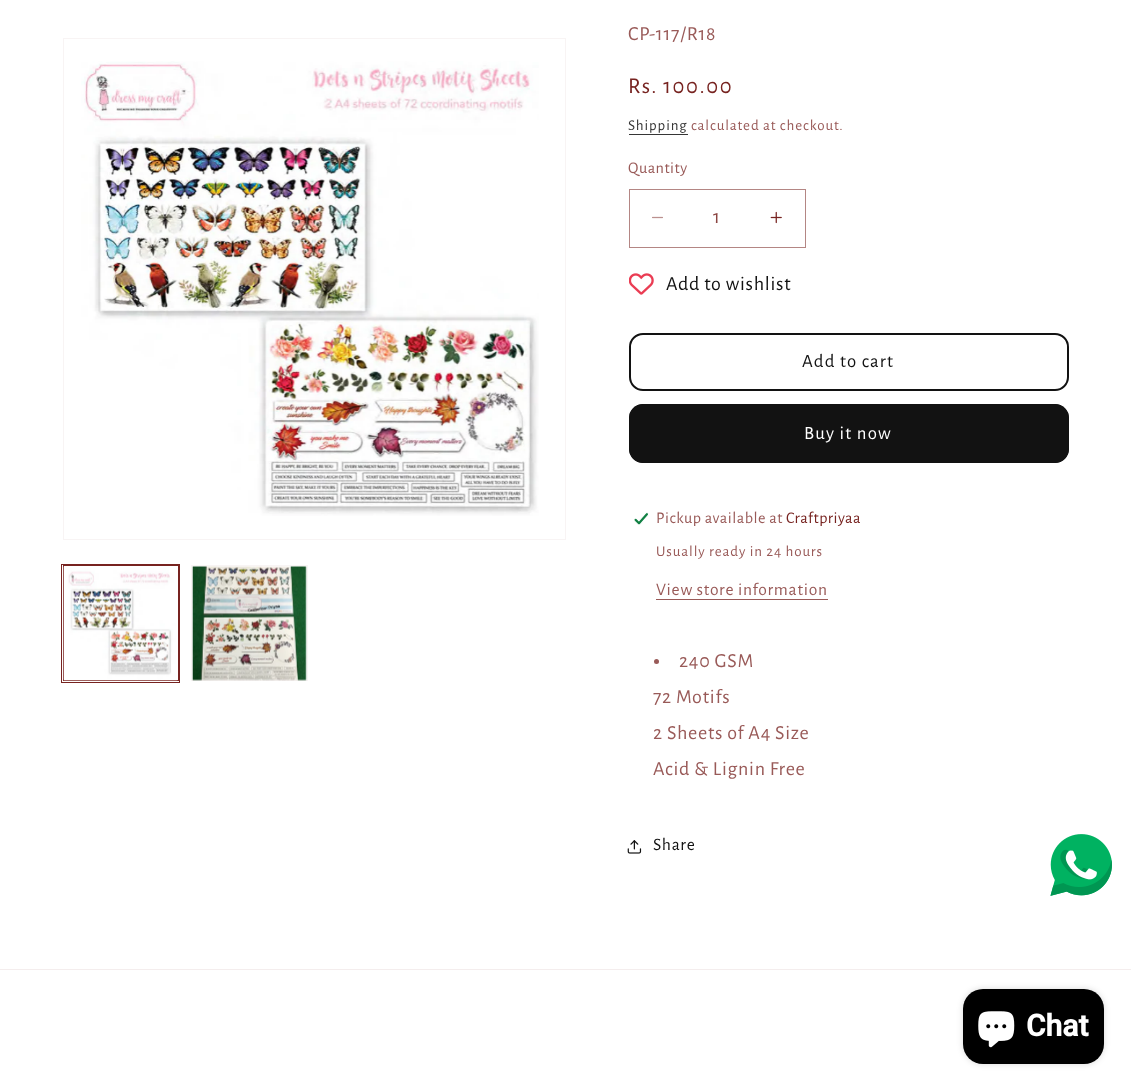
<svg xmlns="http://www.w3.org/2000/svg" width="1131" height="1089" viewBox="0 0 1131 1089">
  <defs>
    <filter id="blur1" x="-50%" y="-200%" width="200%" height="500%"><feGaussianBlur stdDeviation="3"/></filter>
  </defs>
  <rect width="100%" height="100%" fill="#ffffff"/>
  <rect x="63.5" y="38.5" width="502" height="501" fill="none" stroke="#f8f4f4"/>
  <image x="81" y="61" width="458" height="455" href="img1.png"/>
  <rect x="61.5" y="564.5" width="118" height="118" fill="none" stroke="#772320"/>
  <rect x="63.5" y="565.5" width="115" height="115" fill="none" stroke="#772320"/>
  <image x="63" y="566" width="115" height="115" href="img2.png"/>
  <rect x="191.5" y="565.5" width="116" height="115" fill="none" stroke="#f8f4f4"/>
  <image x="192" y="566" width="115" height="115" href="img3.png"/>
  <text x="628" y="40" font-family="Alegreya Sans" font-size="20" letter-spacing="0.75" fill="#995a58">CP-117/R18</text>
  <text x="628" y="93" font-family="Alegreya Sans" font-size="22.5" letter-spacing="1.6" fill="#772320">Rs. 100.00</text>
  <text x="628" y="130" font-family="Alegreya Sans" font-size="15" letter-spacing="0.9" fill="#363636">Shipping</text>
  <rect x="629" y="134" width="59" height="1" fill="#363636"/>
  <text x="691" y="130" font-family="Alegreya Sans" font-size="15" letter-spacing="0.9" fill="#995a58">calculated at checkout.</text>
  <text x="628" y="173" font-family="Alegreya Sans" font-size="16.25" letter-spacing="0.5" fill="#995a58">Quantity</text>
  <image x="652" y="216" width="11" height="3" href="img4.png"/>
  <image x="770" y="211" width="12" height="13" href="img5.png"/>
  <rect x="629.5" y="189.5" width="176" height="58" fill="none" stroke="#b48684"/>
  <text x="713" y="223" font-family="Alegreya Sans" font-size="20" fill="#8b4441">1</text>
  <image x="629" y="273" width="25" height="22" href="img6.png"/>
  <text x="666" y="290" font-family="Alegreya Sans" font-size="20" letter-spacing="0.75" fill="#121212">Add to wishlist</text>
  <rect x="630" y="334" width="438" height="56" rx="13" fill="none" stroke="#121212" stroke-width="2"/>
  <text x="802" y="367" font-family="Alegreya Sans" font-size="18.75" letter-spacing="1.25" fill="#121212">Add to cart</text>
  <rect x="629" y="404" width="440" height="59" rx="14" fill="#121212"/>
  <rect x="629.5" y="404.5" width="439" height="58" rx="13.5" fill="none" stroke="#121212"/>
  <text x="804" y="439" font-family="Alegreya Sans" font-size="18.75" letter-spacing="1.25" fill="#ffffff">Buy it now</text>
  <image x="634" y="512" width="15" height="13" href="img7.png"/>
  <text x="656" y="523" font-family="Alegreya Sans" font-size="16.25" letter-spacing="0.5" fill="#995a58">Pickup available at</text>
  <text x="786" y="523" font-family="Alegreya Sans" font-size="16.25" letter-spacing="0.5" fill="#772320">Craftpriyaa</text>
  <text x="656" y="556" font-family="Alegreya Sans" font-size="15" letter-spacing="0.9" fill="#995a58">Usually ready in 24 hours</text>
  <text x="656" y="595" font-family="Alegreya Sans" font-size="17.5" letter-spacing="0.75" fill="#995a58">View store information</text>
  <rect x="656" y="599" width="172" height="1" fill="#995a58"/>
  <circle cx="656.5" cy="661.5" r="2.5" fill="#995a58"/>
  <text x="679" y="667" font-family="Alegreya Sans" font-size="20" letter-spacing="0.75" fill="#995a58">240 GSM</text>
  <text x="653" y="703" font-family="Alegreya Sans" font-size="20" letter-spacing="0.75" fill="#995a58">72 Motifs</text>
  <text x="653" y="739" font-family="Alegreya Sans" font-size="20" letter-spacing="0.75" fill="#995a58">2 Sheets of A4 Size</text>
  <text x="653" y="775" font-family="Alegreya Sans" font-size="20" letter-spacing="0.75" fill="#995a58">Acid &amp; Lignin Free</text>
  <image x="627" y="840" width="15" height="14" href="img8.png"/>
  <text x="653" y="850" font-family="Alegreya Sans" font-size="17.5" letter-spacing="0.75" fill="#121212">Share</text>
  <image x="1050" y="834" width="62" height="62" href="img9.png"/>
  <rect x="0" y="969" width="1131" height="1" fill="#f4eded"/>
  <rect x="963" y="989" width="141" height="75" rx="20" fill="#000000" fill-opacity="0.15" filter="url(#blur1)"/>
  <rect x="963" y="989" width="141" height="75" rx="20" fill="#000000"/>
  <image x="978" y="1011" width="37" height="37" href="img10.png"/>
  <text x="1026" y="1036" font-family="Roboto" font-size="30" font-weight="bold" fill="#ffffff">Chat</text>
</svg>
